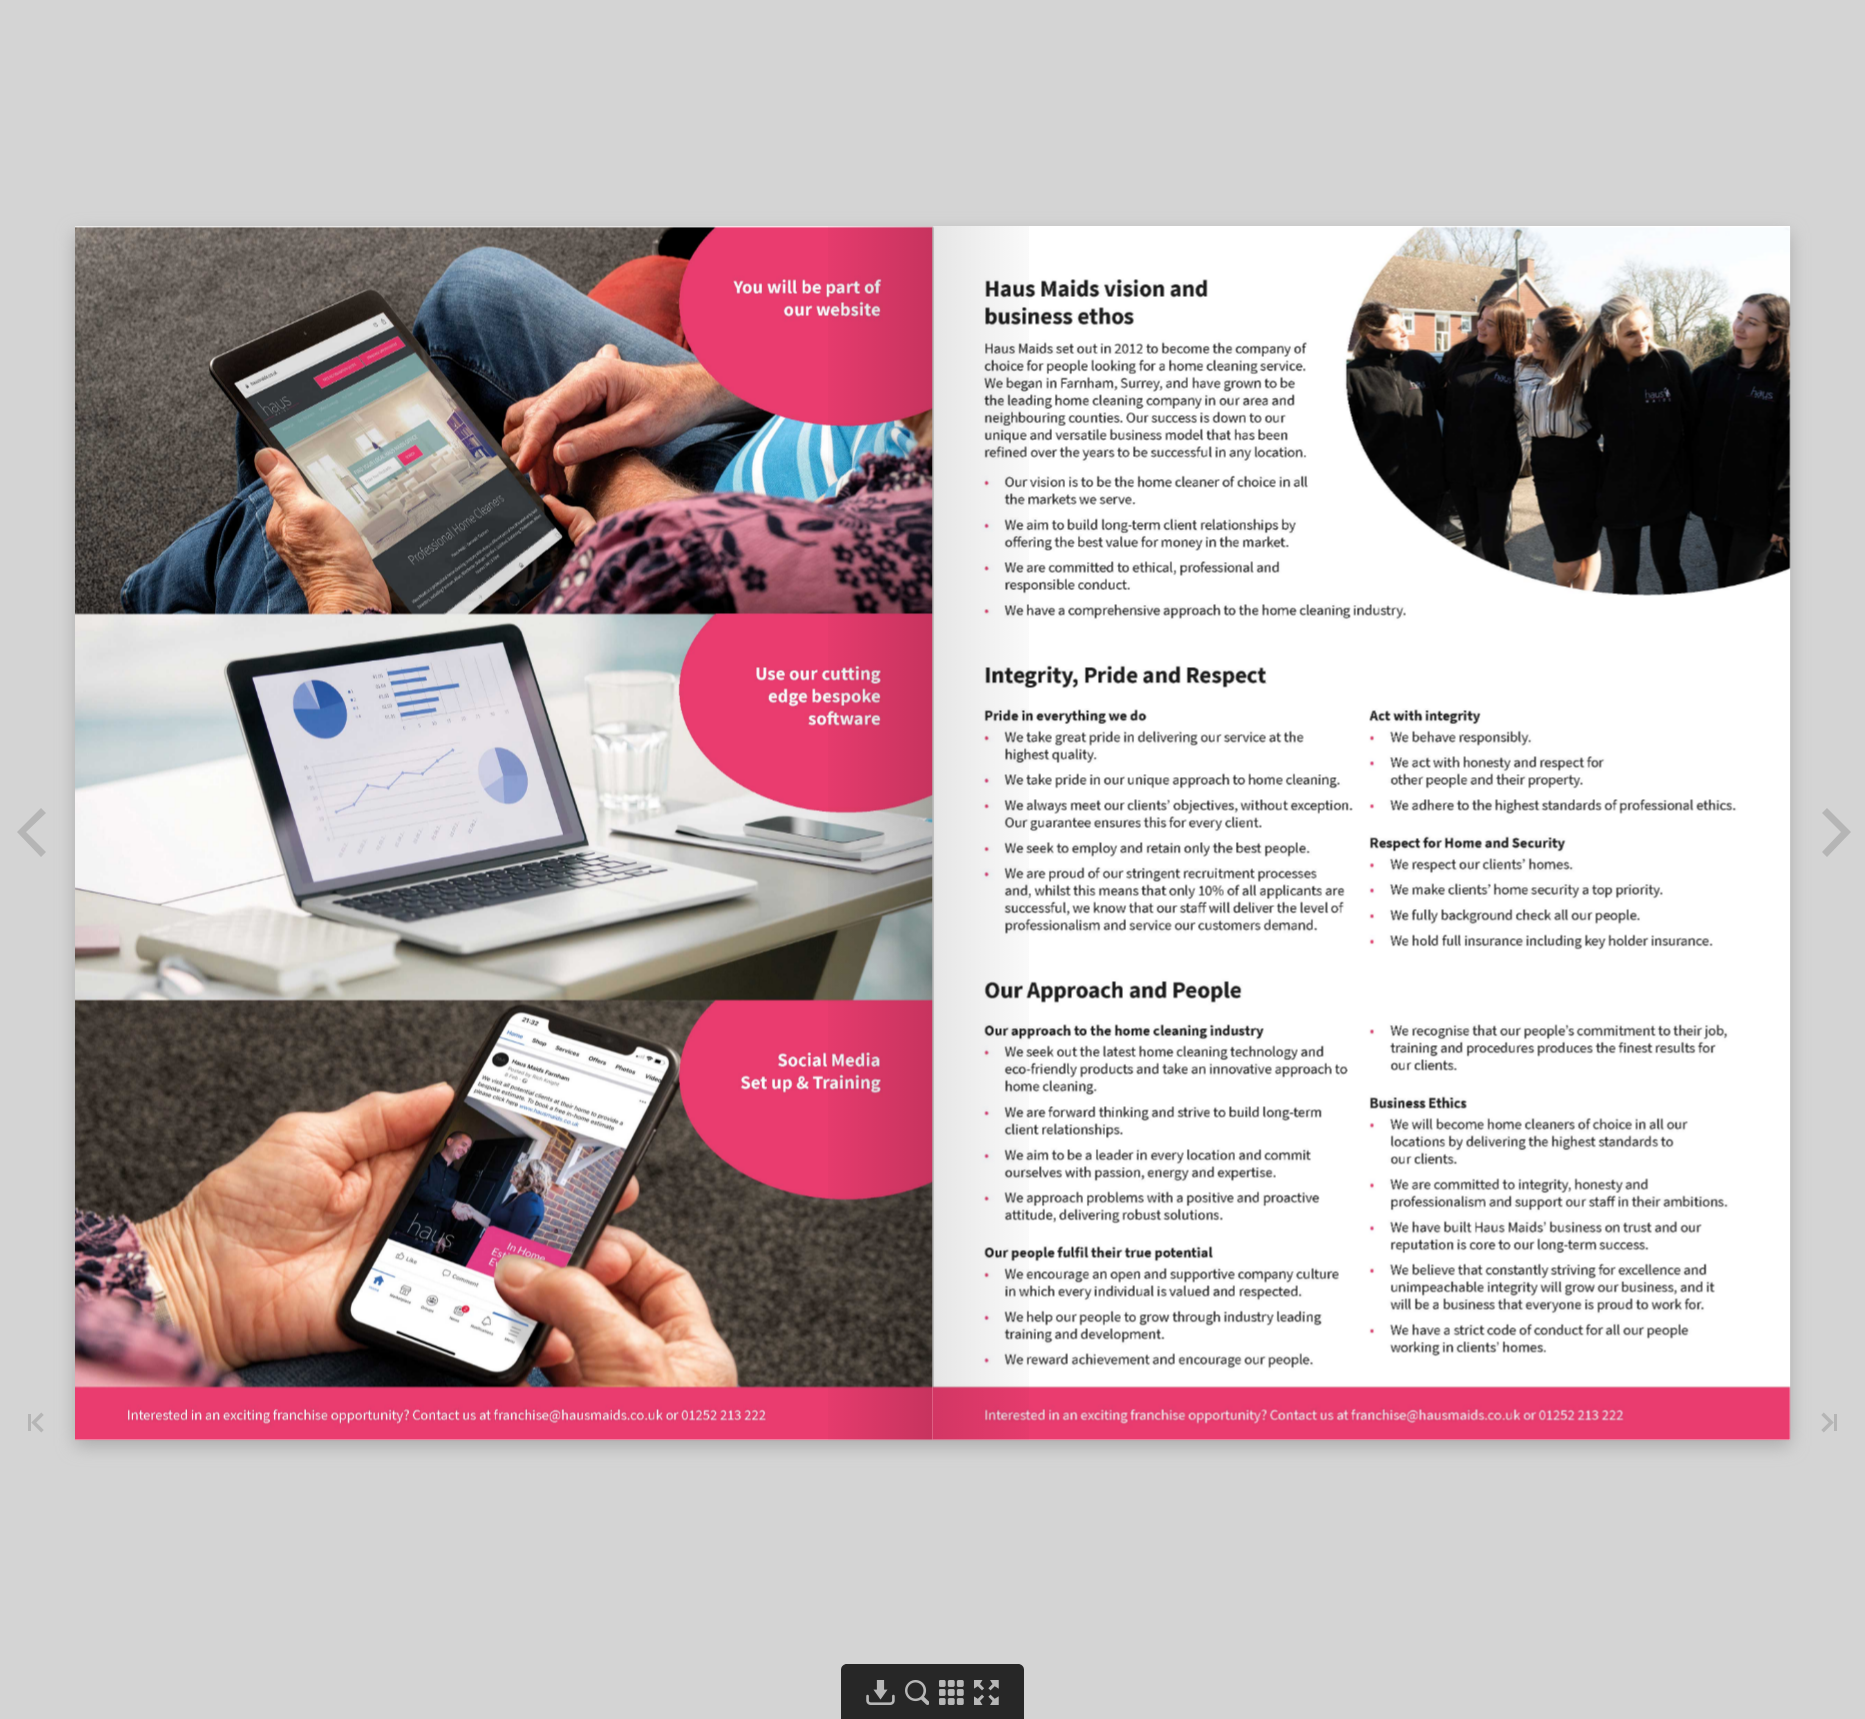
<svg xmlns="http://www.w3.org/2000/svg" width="1865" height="1719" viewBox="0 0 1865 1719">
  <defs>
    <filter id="blur1" x="-50%" y="-200%" width="200%" height="500%"><feGaussianBlur stdDeviation="9"/></filter>
    <linearGradient id="g1" gradientUnits="userSpaceOnUse" x1="810" y1="833" x2="933" y2="833"><stop offset="0" stop-color="#000000" stop-opacity="0"/><stop offset="1" stop-color="#000000" stop-opacity="0.15"/></linearGradient>
    <linearGradient id="g2" gradientUnits="userSpaceOnUse" x1="933" y1="833" x2="1055" y2="833"><stop offset="0" stop-color="#000000" stop-opacity="0.1"/><stop offset="1" stop-color="#000000" stop-opacity="0"/></linearGradient>
  </defs>
  <rect width="100%" height="100%" fill="#d4d4d4"/>
  <path d="M17 832L41 857L46 852L26 832L46 813L41 808Z" fill="#b5b5b5"/>
  <rect x="75" y="233" width="1715" height="1213" fill="#aaaaaa" filter="url(#blur1)"/>
  <rect x="75" y="226" width="1715" height="1214" fill="#ffffff"/>
  <image x="75" y="226" width="858" height="1215" href="img1.png"/>
  <rect x="828" y="226" width="105" height="1214" fill="url(#g1)"/>
  <image x="932" y="226" width="859" height="1215" href="img2.png"/>
  <rect x="933" y="226" width="96" height="1214" fill="url(#g2)"/>
  <path d="M1851 832L1827 857L1822 852L1841 832L1822 813L1827 808Z" fill="#b5b5b5"/>
  <image x="28" y="1412" width="16" height="21" href="img3.png"/>
  <image x="1821" y="1412" width="16" height="21" href="img4.png"/>
  <path d="M847 1664H1018C1021.5 1664 1024 1666.5 1024 1670V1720H841V1670C841 1666.5 843.5 1664 847 1664Z" fill="#272727"/>
  <image x="866" y="1680" width="29" height="25" href="img5.png"/>
  <image x="905" y="1680" width="24" height="25" href="img6.png"/>
  <image x="939" y="1680" width="25" height="25" href="img7.png"/>
  <image x="974" y="1680" width="25" height="25" href="img8.png"/>
</svg>
